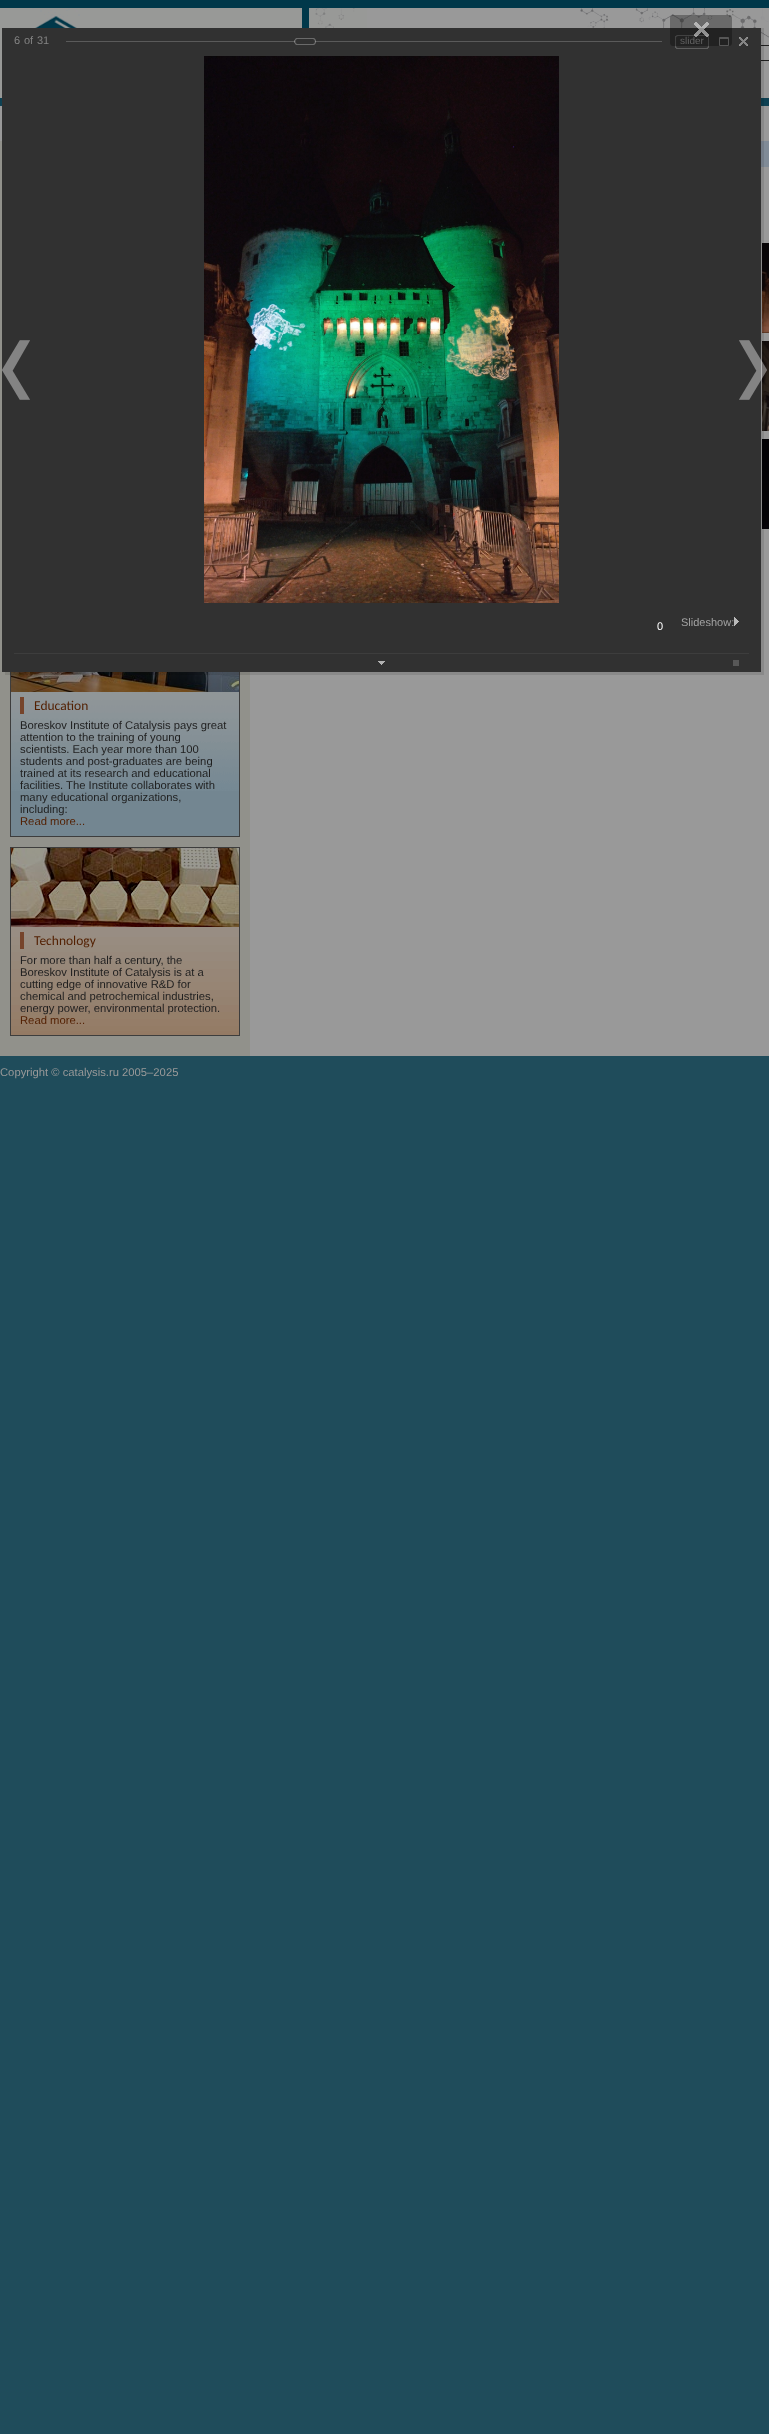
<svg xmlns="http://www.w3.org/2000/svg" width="769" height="2434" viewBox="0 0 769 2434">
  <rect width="100%" height="100%" fill="#1f4c5b"/>
  <image x="0" y="0" width="769" height="106" href="img1.png"/>
  <image x="0" y="8" width="302" height="90" href="img2.png"/>
  <rect x="367" y="8" width="402" height="90" fill="#999999"/>
  <image x="309" y="8" width="58" height="20" href="img3.png"/>
  <image x="562" y="8" width="207" height="89" href="img4.png"/>
  <rect x="729.5" y="45.5" width="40" height="15" fill="none" stroke="#1f1f1f"/>
  <rect x="0" y="106" width="769" height="35" fill="#999999"/>
  <rect x="250" y="167" width="519" height="889" fill="#999999"/>
  <rect x="0" y="141" width="250" height="915" fill="#91918b"/>
  <rect x="761" y="141" width="8" height="26" fill="#808b97"/>
  <image x="762" y="243" width="7" height="90" href="img16.png"/>
  <image x="762" y="341" width="7" height="90" href="img17.png"/>
  <image x="762" y="439" width="7" height="90" href="img18.png"/>
  <rect x="11" y="791" width="228" height="45" fill="#738691"/>
  <image x="11" y="692" width="228" height="99" href="img19.png"/>
  <rect x="10.5" y="602.5" width="229" height="234" fill="none" stroke="#3d3d3d"/>
  <image x="11" y="672" width="228" height="20" href="img20.png"/>
  <rect x="5" y="28" width="759" height="647" fill="#000000" fill-opacity="0.1"/>
  <rect x="2" y="28" width="759" height="644" fill="#313131"/>
  <image x="675" y="35" width="31" height="14" href="img8.png"/>
  <text x="680" y="44" font-family="Liberation Sans" font-size="10" fill="#8c8c8c">slider</text>
  <image x="706" y="35" width="3" height="14" href="img9.png"/>
  <image x="719" y="37" width="10" height="9" href="img10.png"/>
  <image x="670" y="15" width="62" height="31" href="img5.png"/>
  <image x="739" y="340" width="28" height="60" href="img6.png"/>
  <text x="14" y="44" font-family="Liberation Sans" font-size="11" fill="#838383">6</text>
  <text x="24" y="44" font-family="Liberation Sans" font-size="11" fill="#838383">of</text>
  <text x="37" y="44" font-family="Liberation Sans" font-size="11" fill="#838383">31</text>
  <rect x="66" y="41" width="596" height="1" fill="#5a5a5a"/>
  <image x="294" y="38" width="22" height="7" href="img7.png"/>
  <image x="739" y="37" width="9" height="9" href="img11.png"/>
  <image x="204" y="56" width="355" height="547" href="img12.png"/>
  <rect x="14" y="653" width="735" height="1" fill="#3d3d3d"/>
  <text x="657" y="630" font-family="Liberation Sans" font-size="11" fill="#ffffff">0</text>
  <text x="681" y="626" font-family="Liberation Sans" font-size="11" fill="#a2a2a2">Slideshow:</text>
  <image x="734" y="617" width="5" height="9" href="img13.png"/>
  <image x="378" y="661" width="7" height="4" href="img14.png"/>
  <rect x="733" y="660" width="6" height="6" fill="#585858"/>
  <image x="2" y="340" width="28" height="60" href="img15.png"/>
  <rect x="20" y="697" width="4" height="17" fill="#76442b"/>
  <text x="34" y="710" font-family="Carlito" font-size="13.5" fill="#521f00">Education</text>
  <text x="20" y="729" font-family="Liberation Sans" font-size="11.25" fill="#1f1f1f">Boreskov Institute of Catalysis pays great</text>
  <text x="20" y="741" font-family="Liberation Sans" font-size="11.25" fill="#1f1f1f">attention to the training of young</text>
  <text x="20" y="753" font-family="Liberation Sans" font-size="11.25" fill="#1f1f1f">scientists. Each year more than 100</text>
  <text x="20" y="765" font-family="Liberation Sans" font-size="11.25" fill="#1f1f1f">students and post-graduates are being</text>
  <text x="20" y="777" font-family="Liberation Sans" font-size="11.25" fill="#1f1f1f">trained at its research and educational</text>
  <text x="20" y="789" font-family="Liberation Sans" font-size="11.25" fill="#1f1f1f">facilities. The Institute collaborates with</text>
  <text x="20" y="801" font-family="Liberation Sans" font-size="11.25" fill="#1f1f1f">many educational organizations,</text>
  <text x="20" y="813" font-family="Liberation Sans" font-size="11.25" fill="#1f1f1f">including:</text>
  <text x="20" y="825" font-family="Liberation Sans" font-size="11.25" fill="#521f00">Read more...</text>
  <image x="11" y="927" width="228" height="108" href="img21.png"/>
  <rect x="10.5" y="847.5" width="229" height="188" fill="none" stroke="#3d3d3d"/>
  <image x="11" y="848" width="228" height="79" href="img22.png"/>
  <rect x="20" y="932" width="4" height="17" fill="#76442b"/>
  <text x="34" y="945" font-family="Carlito" font-size="13.5" fill="#521f00">Technology</text>
  <text x="20" y="964" font-family="Liberation Sans" font-size="11.25" fill="#1f1f1f">For more than half a century, the</text>
  <text x="20" y="976" font-family="Liberation Sans" font-size="11.25" fill="#1f1f1f">Boreskov Institute of Catalysis is at a</text>
  <text x="20" y="988" font-family="Liberation Sans" font-size="11.25" fill="#1f1f1f">cutting edge of innovative R&amp;D for</text>
  <text x="20" y="1000" font-family="Liberation Sans" font-size="11.25" fill="#1f1f1f">chemical and petrochemical industries,</text>
  <text x="20" y="1012" font-family="Liberation Sans" font-size="11.25" fill="#1f1f1f">energy power, environmental protection.</text>
  <text x="20" y="1024" font-family="Liberation Sans" font-size="11.25" fill="#521f00">Read more...</text>
  <text x="0" y="1076" font-family="Liberation Sans" font-size="11.25" fill="#999999">Copyright © catalysis.ru 2005–2025</text>
</svg>
